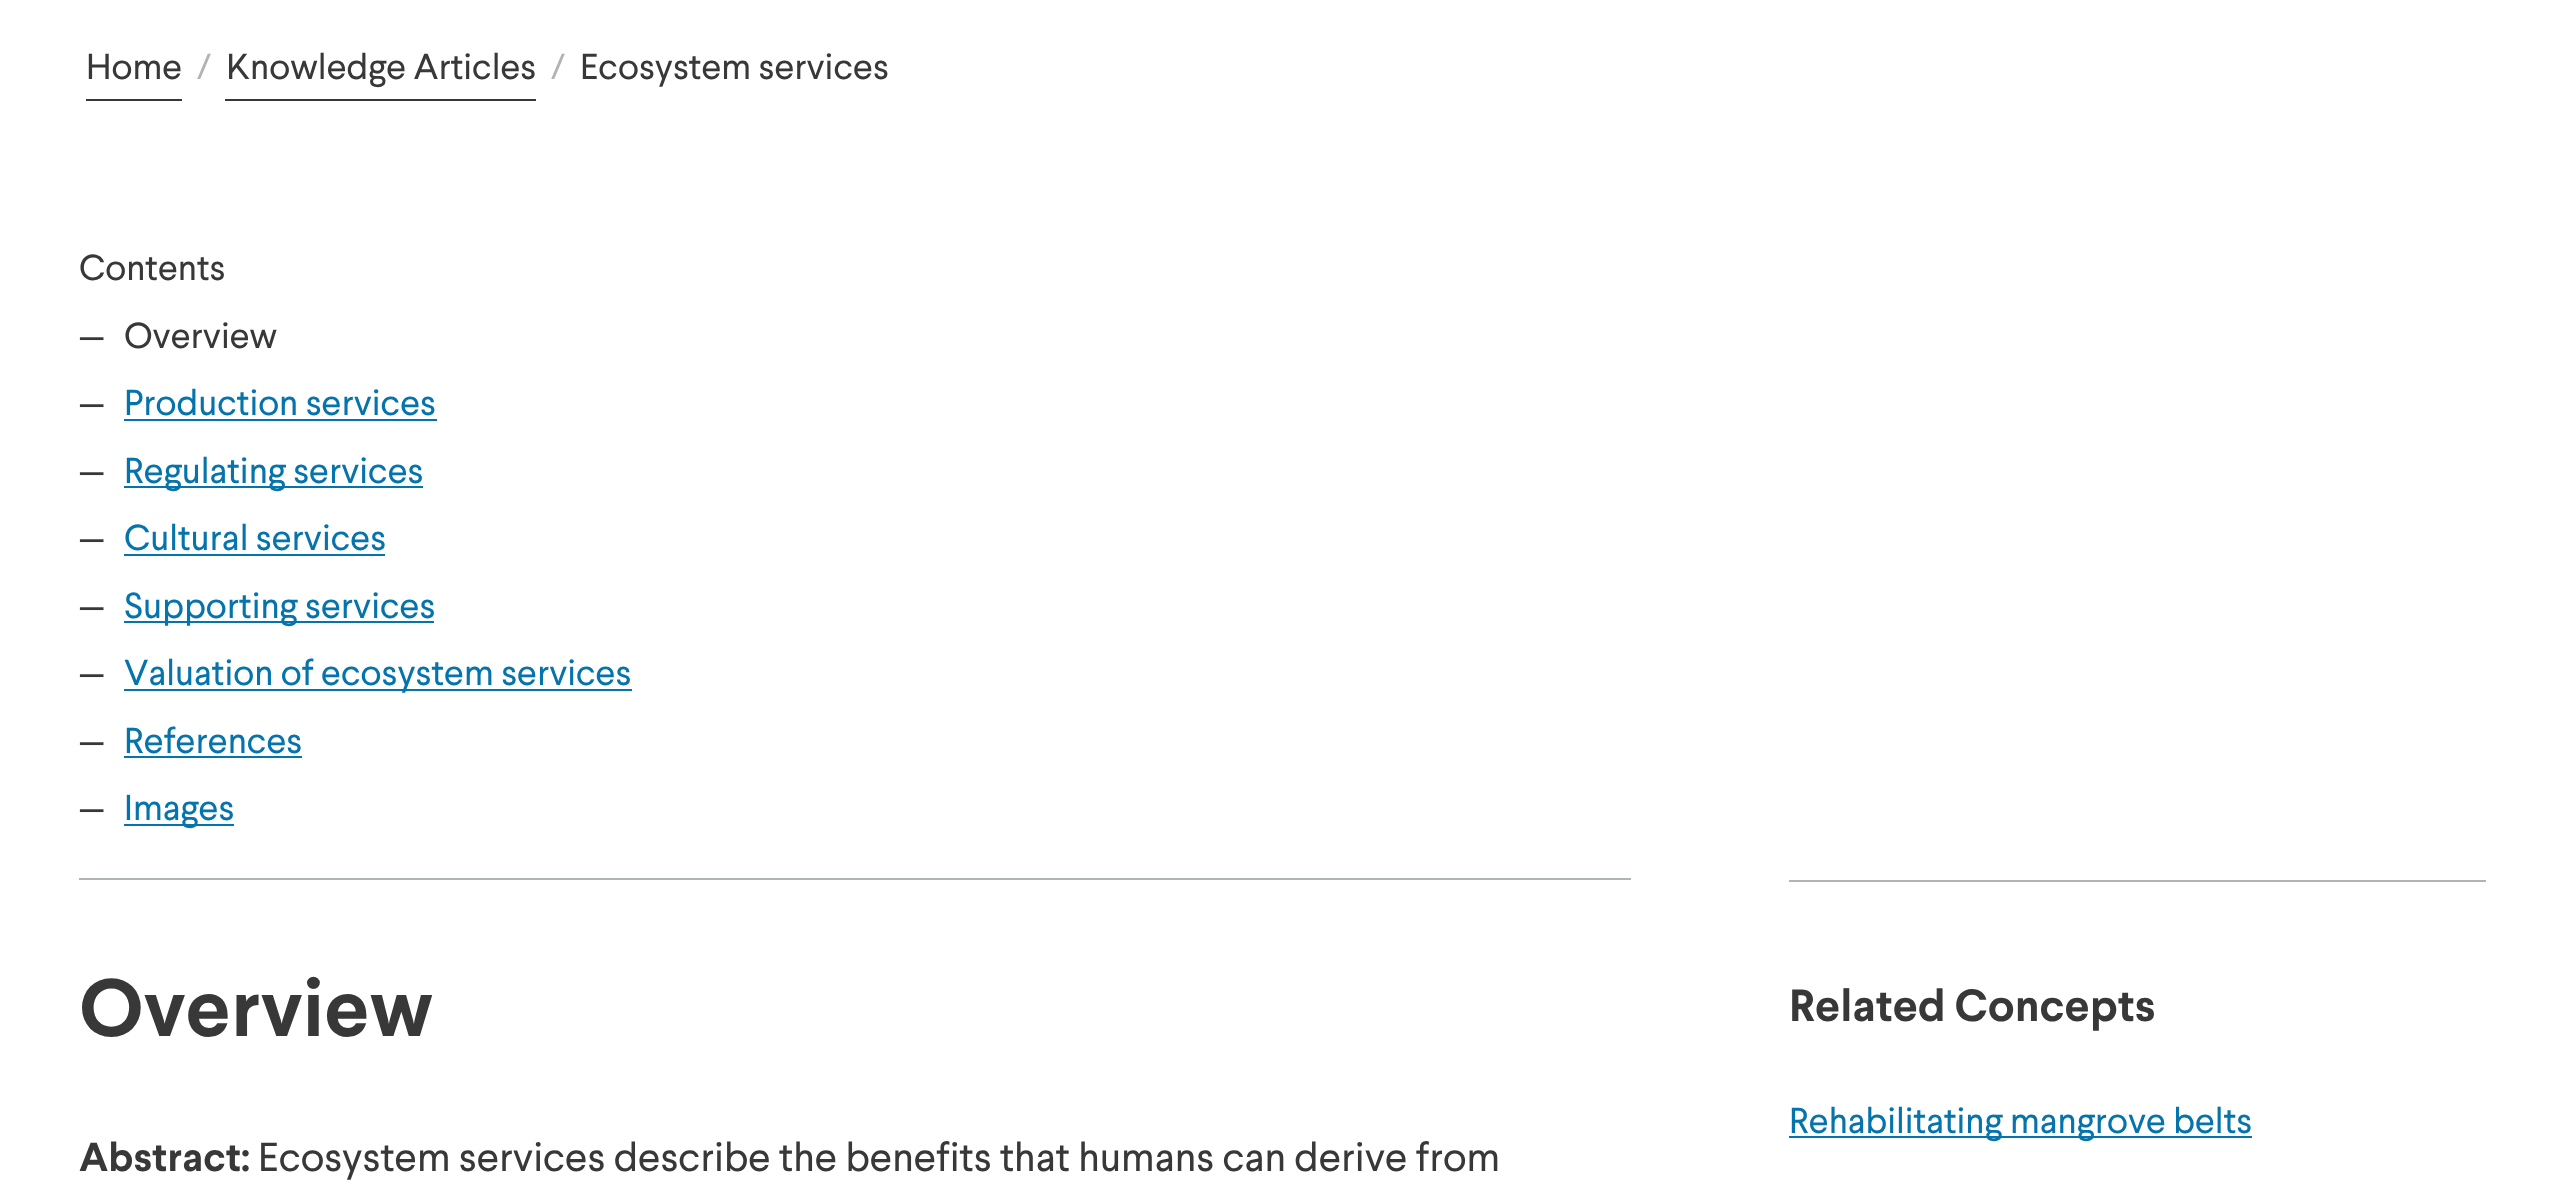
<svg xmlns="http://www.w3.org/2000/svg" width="2564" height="1187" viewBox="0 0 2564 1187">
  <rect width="100%" height="100%" fill="#ffffff"/>
  <rect x="86" y="99" width="96" height="2" fill="#383838"/>
  <text x="86" y="79" font-family="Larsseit" font-size="36" fill="#383838">Home</text>
  <text x="197" y="79" font-family="Larsseit" font-size="36" fill="#b1b4b6">/</text>
  <rect x="225" y="99" width="311" height="2" fill="#383838"/>
  <text x="226" y="79" font-family="Larsseit" font-size="36" fill="#383838">Knowledge Articles</text>
  <text x="551" y="79" font-family="Larsseit" font-size="36" fill="#b1b4b6">/</text>
  <text x="580" y="79" font-family="Larsseit" font-size="36" fill="#383838">Ecosystem services</text>
  <rect x="79" y="878" width="1552" height="2" fill="#b1b4b6"/>
  <text x="79" y="280" font-family="Larsseit" font-size="36" fill="#383838">Contents</text>
  <text x="79" y="348" font-family="Larsseit" font-size="36" fill="#383838">—</text>
  <text x="124" y="348" font-family="Larsseit" font-size="36" fill="#383838">Overview</text>
  <text x="79" y="415" font-family="Larsseit" font-size="36" fill="#383838">—</text>
  <text x="124" y="415" font-family="Larsseit" font-size="36" fill="#0674ac">Production services</text>
  <rect x="124" y="419" width="313" height="2" fill="#0674ac"/>
  <text x="79" y="483" font-family="Larsseit" font-size="36" fill="#383838">—</text>
  <rect x="124" y="486" width="299" height="2" fill="#0674ac"/>
  <text x="124" y="483" font-family="Larsseit" font-size="36" fill="#0674ac">Regulating services</text>
  <text x="79" y="550" font-family="Larsseit" font-size="36" fill="#383838">—</text>
  <text x="124" y="550" font-family="Larsseit" font-size="36" fill="#0674ac">Cultural services</text>
  <rect x="124" y="554" width="261" height="2" fill="#0674ac"/>
  <text x="79" y="618" font-family="Larsseit" font-size="36" fill="#383838">—</text>
  <rect x="124" y="621" width="310" height="2" fill="#0674ac"/>
  <text x="124" y="618" font-family="Larsseit" font-size="36" fill="#0674ac">Supporting services</text>
  <text x="79" y="685" font-family="Larsseit" font-size="36" fill="#383838">—</text>
  <rect x="124" y="689" width="508" height="2" fill="#0674ac"/>
  <text x="124" y="685" font-family="Larsseit" font-size="36" fill="#0674ac">Valuation of ecosystem services</text>
  <text x="79" y="753" font-family="Larsseit" font-size="36" fill="#383838">—</text>
  <text x="124" y="753" font-family="Larsseit" font-size="36" fill="#0674ac">References</text>
  <rect x="124" y="756" width="178" height="2" fill="#0674ac"/>
  <text x="79" y="820" font-family="Larsseit" font-size="36" fill="#383838">—</text>
  <rect x="124" y="824" width="110" height="2" fill="#0674ac"/>
  <text x="124" y="820" font-family="Larsseit" font-size="36" fill="#0674ac">Images</text>
  <text x="79" y="1036" font-family="Larsseit" font-size="81" font-weight="bold" fill="#383838">Overview</text>
  <text x="79" y="1171" font-family="Larsseit" font-size="40.5" font-weight="bold" fill="#383838">Abstract:</text>
  <text x="258" y="1171" font-family="Larsseit" font-size="40.5" fill="#383838">Ecosystem services describe the benefits that humans can derive from</text>
  <rect x="1789" y="880" width="697" height="2" fill="#b1b4b6"/>
  <text x="1789" y="1021" font-family="Larsseit" font-size="45" font-weight="bold" fill="#383838">Related Concepts</text>
  <rect x="1789" y="1136" width="463" height="2" fill="#0674ac"/>
  <text x="1789" y="1133" font-family="Larsseit" font-size="36" fill="#0674ac">Rehabilitating mangrove belts</text>
</svg>
